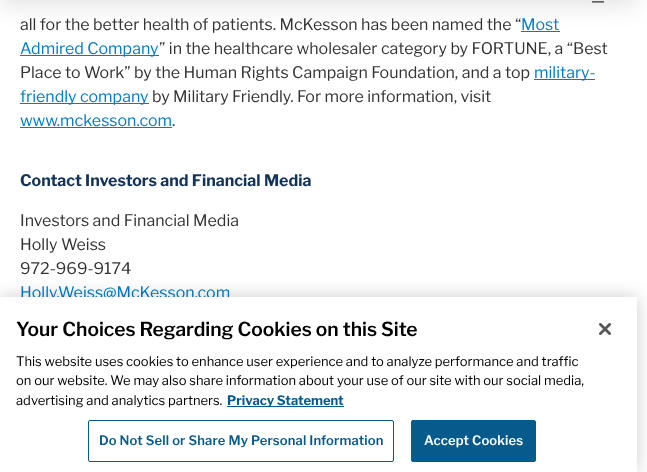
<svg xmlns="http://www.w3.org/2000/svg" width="647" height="472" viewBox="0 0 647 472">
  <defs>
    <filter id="blur1" x="-50%" y="-200%" width="200%" height="500%"><feGaussianBlur stdDeviation="12.5"/></filter>
    <filter id="blur2" x="-50%" y="-200%" width="200%" height="500%"><feGaussianBlur stdDeviation="9"/></filter>
  </defs>
  <rect width="100%" height="100%" fill="#ffffff"/>
  <rect x="521" y="31" width="39" height="1" fill="#007bc7"/>
  <rect x="0" y="-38" width="637" height="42" fill="#000000" fill-opacity="0.12" filter="url(#blur1)"/>
  <text x="591" y="6" font-family="Libre Franklin" font-size="16" fill="#333333">—</text>
  <text x="20" y="30" font-family="Libre Franklin" font-size="16" fill="#333333">all for the better health of patients. McKesson has been named the “</text>
  <text x="521" y="30" font-family="Libre Franklin" font-size="16" fill="#007bc7">Most</text>
  <rect x="20" y="55" width="139" height="1" fill="#007bc7"/>
  <text x="20" y="54" font-family="Libre Franklin" font-size="16" fill="#007bc7">Admired Company</text>
  <text x="159" y="54" font-family="Libre Franklin" font-size="16" fill="#333333">” in the healthcare wholesaler category by FORTUNE, a “Best</text>
  <text x="20" y="78" font-family="Libre Franklin" font-size="16" fill="#333333">Place to Work” by the Human Rights Campaign Foundation, and a top</text>
  <rect x="534" y="79" width="61" height="1" fill="#007bc7"/>
  <text x="534" y="78" font-family="Libre Franklin" font-size="16" fill="#007bc7">military-</text>
  <rect x="20" y="103" width="129" height="1" fill="#007bc7"/>
  <text x="20" y="102" font-family="Libre Franklin" font-size="16" fill="#007bc7">friendly company</text>
  <text x="152" y="102" font-family="Libre Franklin" font-size="16" fill="#333333">by Military Friendly. For more information, visit</text>
  <text x="20" y="126" font-family="Libre Franklin" font-size="16" fill="#007bc7">www.mckesson.com</text>
  <rect x="20" y="127" width="152" height="1" fill="#007bc7"/>
  <text x="172" y="126" font-family="Libre Franklin" font-size="16" fill="#333333">.</text>
  <text x="20" y="186" font-family="Libre Franklin" font-size="16" font-weight="bold" fill="#143359">Contact Investors and Financial Media</text>
  <text x="20" y="226" font-family="Libre Franklin" font-size="16" fill="#333333">Investors and Financial Media</text>
  <text x="20" y="250" font-family="Libre Franklin" font-size="16" fill="#333333">Holly Weiss</text>
  <text x="20" y="274" font-family="Libre Franklin" font-size="16" fill="#333333">972-969-9174</text>
  <text x="20" y="298" font-family="Libre Franklin" font-size="16" fill="#007bc7">Holly.Weiss@McKesson.com</text>
  <rect x="0" y="297" width="637" height="175" fill="#000000" fill-opacity="0.2" filter="url(#blur2)"/>
  <rect x="0" y="297" width="637" height="175" fill="#ffffff"/>
  <text x="16" y="336" font-family="Libre Franklin" font-size="19.2" font-weight="600" fill="#000000">Your Choices Regarding Cookies on this Site</text>
  <text x="16" y="366" font-family="Libre Franklin" font-size="13" fill="#000000">This website uses cookies to enhance user experience and to analyze performance and traffic</text>
  <text x="16" y="385" font-family="Libre Franklin" font-size="13" fill="#000000">on our website. We may also share information about your use of our site with our social media,</text>
  <text x="16" y="405" font-family="Libre Franklin" font-size="13" fill="#000000">advertising and analytics partners.</text>
  <rect x="227" y="406" width="117" height="1" fill="#075b8c"/>
  <text x="227" y="405" font-family="Libre Franklin" font-size="13" font-weight="bold" fill="#075b8c">Privacy Statement</text>
  <rect x="88.5" y="420.5" width="305" height="41" rx="1.5" fill="none" stroke="#075b8c"/>
  <text x="99" y="445" font-family="Libre Franklin" font-size="13" font-weight="600" letter-spacing="0.15" fill="#075b8c">Do Not Sell or Share My Personal Information</text>
  <rect x="411.5" y="420.5" width="124" height="41" rx="1.5" fill="#075b8c" stroke="#075b8c"/>
  <text x="424" y="445" font-family="Libre Franklin" font-size="13" font-weight="600" letter-spacing="0.15" fill="#ffffff">Accept Cookies</text>
  <image x="599" y="323" width="12" height="12" href="img1.png"/>
</svg>
